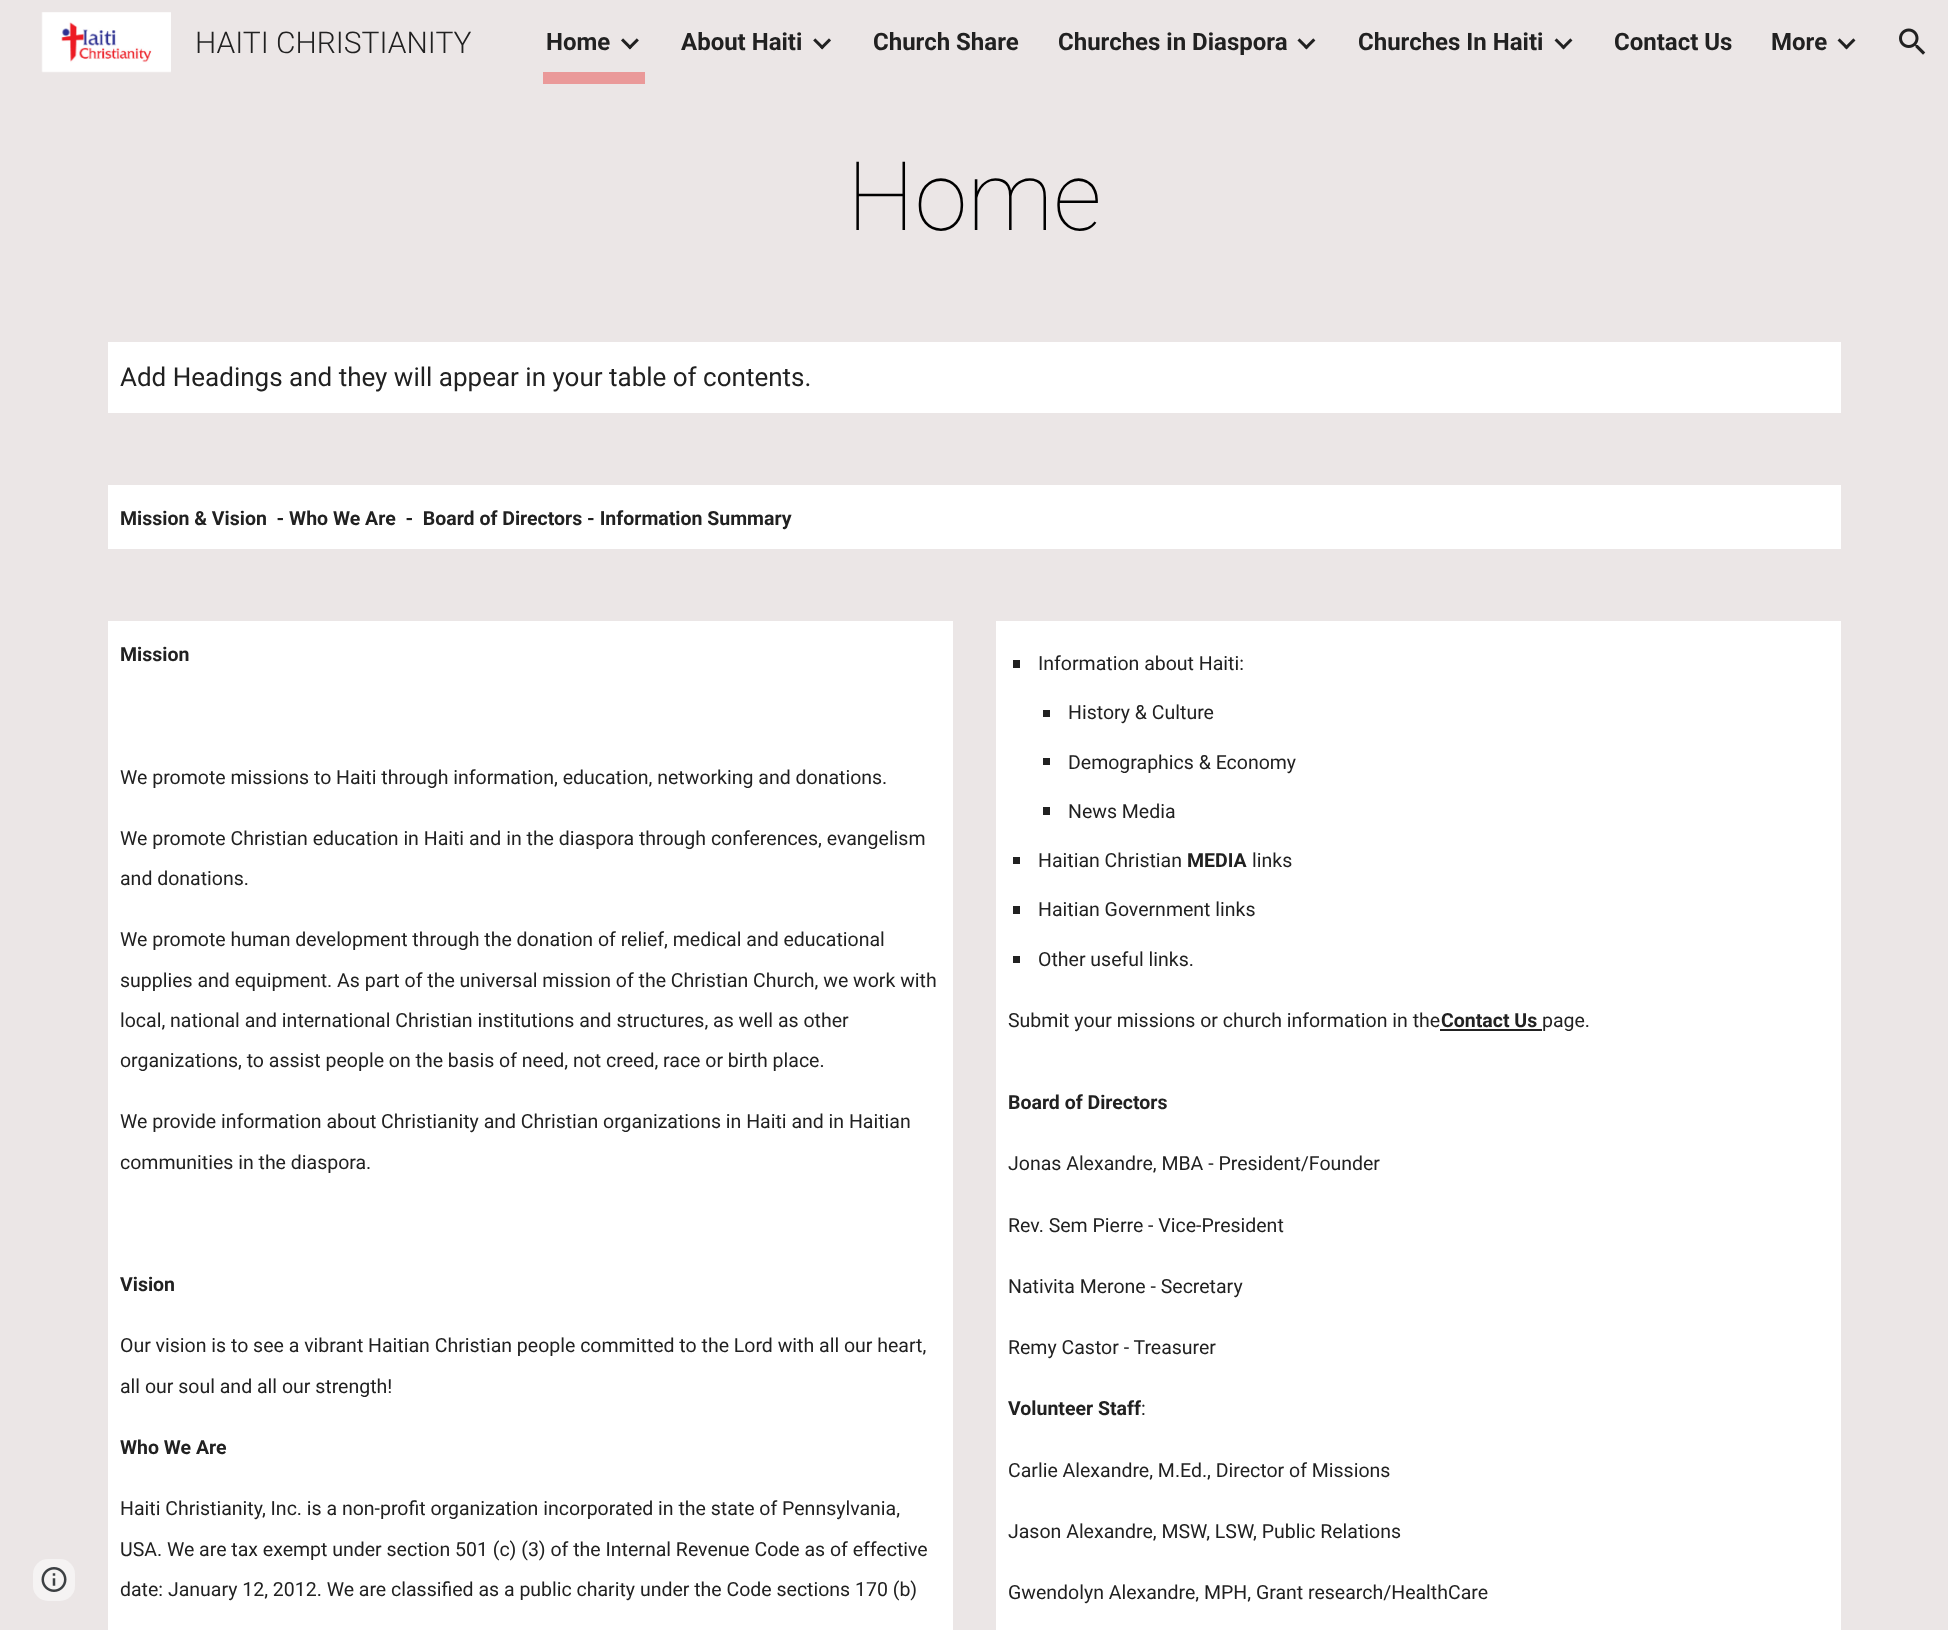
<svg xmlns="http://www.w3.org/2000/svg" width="1948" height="1630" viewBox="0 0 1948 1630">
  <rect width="100%" height="100%" fill="#ebe6e6"/>
  <image x="41" y="12" width="130" height="61" href="img1.png"/>
  <text x="195" y="53" font-family="Roboto" font-size="30" font-weight="300" fill="#212121">HAITI CHRISTIANITY</text>
  <rect x="543" y="72" width="102" height="12" fill="#ea9999"/>
  <text x="546" y="50" font-family="Roboto" font-size="24" font-weight="bold" fill="#212121">Home</text>
  <image x="621" y="38" width="18" height="12" href="img2.png"/>
  <text x="681" y="50" font-family="Roboto" font-size="24" font-weight="bold" fill="#212121">About Haiti</text>
  <image x="813" y="38" width="18" height="12" href="img3.png"/>
  <text x="873" y="50" font-family="Roboto" font-size="24" font-weight="bold" fill="#212121">Church Share</text>
  <text x="1058" y="50" font-family="Roboto" font-size="24" font-weight="bold" fill="#212121">Churches in Diaspora</text>
  <image x="1297" y="38" width="19" height="12" href="img4.png"/>
  <text x="1358" y="50" font-family="Roboto" font-size="24" font-weight="bold" fill="#212121">Churches In Haiti</text>
  <image x="1554" y="38" width="19" height="12" href="img5.png"/>
  <text x="1614" y="50" font-family="Roboto" font-size="24" font-weight="bold" fill="#212121">Contact Us</text>
  <text x="1771" y="50" font-family="Roboto" font-size="24" font-weight="bold" fill="#212121">More</text>
  <image x="1837" y="38" width="19" height="12" href="img6.png"/>
  <image x="1899" y="28" width="27" height="27" href="img7.png"/>
  <rect x="33" y="1559" width="42" height="42" rx="15" fill="#f5f3f3"/>
  <image x="41" y="1567" width="26" height="25" href="img8.png"/>
  <text x="847" y="230" font-family="Roboto" font-size="96" font-weight="100" fill="#000000">Home</text>
  <rect x="108" y="342" width="1733" height="71" fill="#ffffff"/>
  <text x="120" y="386" font-family="Roboto" font-size="26" fill="#212121">Add Headings and they will appear in your table of contents.</text>
  <rect x="108" y="485" width="1733" height="64" fill="#ffffff"/>
  <text x="120" y="525" font-family="Roboto" font-size="19.5" font-weight="bold" fill="#212121" xml:space="preserve">Mission &amp; Vision  - Who We Are  -  Board of Directors - Information Summary</text>
  <rect x="108" y="621" width="845" height="1009" fill="#ffffff"/>
  <text x="120" y="661" font-family="Roboto" font-size="19.5" font-weight="bold" fill="#212121">Mission</text>
  <text x="120" y="784" font-family="Roboto" font-size="19.5" fill="#212121">We promote missions to Haiti through information, education, networking and donations.</text>
  <text x="120" y="845" font-family="Roboto" font-size="19.5" fill="#212121">We promote Christian education in Haiti and in the diaspora through conferences, evangelism</text>
  <text x="120" y="885" font-family="Roboto" font-size="19.5" fill="#212121">and donations.</text>
  <text x="120" y="946" font-family="Roboto" font-size="19.5" fill="#212121">We promote human development through the donation of relief, medical and educational</text>
  <text x="120" y="987" font-family="Roboto" font-size="19.5" fill="#212121">supplies and equipment. As part of the universal mission of the Christian Church, we work with</text>
  <text x="120" y="1027" font-family="Roboto" font-size="19.5" fill="#212121">local, national and international Christian institutions and structures, as well as other</text>
  <text x="120" y="1067" font-family="Roboto" font-size="19.5" fill="#212121">organizations, to assist people on the basis of need, not creed, race or birth place.</text>
  <text x="120" y="1128" font-family="Roboto" font-size="19.5" fill="#212121">We provide information about Christianity and Christian organizations in Haiti and in Haitian</text>
  <text x="120" y="1169" font-family="Roboto" font-size="19.5" fill="#212121">communities in the diaspora.</text>
  <text x="120" y="1291" font-family="Roboto" font-size="19.5" font-weight="bold" fill="#212121">Vision</text>
  <text x="120" y="1352" font-family="Roboto" font-size="19.5" fill="#212121">Our vision is to see a vibrant Haitian Christian people committed to the Lord with all our heart,</text>
  <text x="120" y="1393" font-family="Roboto" font-size="19.5" fill="#212121">all our soul and all our strength!</text>
  <text x="120" y="1454" font-family="Roboto" font-size="19.5" font-weight="bold" fill="#212121">Who We Are</text>
  <text x="120" y="1515" font-family="Roboto" font-size="19.5" fill="#212121">Haiti Christianity, Inc. is a non-profit organization incorporated in the state of Pennsylvania,</text>
  <text x="120" y="1556" font-family="Roboto" font-size="19.5" fill="#212121">USA. We are tax exempt under section 501 (c) (3) of the Internal Revenue Code as of effective</text>
  <text x="120" y="1596" font-family="Roboto" font-size="19.5" fill="#212121">date: January 12, 2012. We are classified as a public charity under the Code sections 170 (b)</text>
  <rect x="996" y="621" width="845" height="1009" fill="#ffffff"/>
  <rect x="1013" y="660" width="7" height="8" fill="#212121"/>
  <text x="1038" y="670" font-family="Roboto" font-size="19.5" fill="#212121">Information about Haiti:</text>
  <rect x="1043" y="710" width="7" height="7" fill="#212121"/>
  <text x="1068" y="719" font-family="Roboto" font-size="19.5" fill="#212121">History &amp; Culture</text>
  <rect x="1043" y="758" width="7" height="7" fill="#212121"/>
  <text x="1068" y="769" font-family="Roboto" font-size="19.5" fill="#212121">Demographics &amp; Economy</text>
  <rect x="1043" y="807" width="7" height="8" fill="#212121"/>
  <text x="1068" y="818" font-family="Roboto" font-size="19.5" fill="#212121">News Media</text>
  <rect x="1013" y="857" width="7" height="7" fill="#212121"/>
  <text x="1038" y="867" font-family="Roboto" font-size="19.5" fill="#212121">Haitian Christian</text>
  <text x="1187" y="867" font-family="Roboto" font-size="19.5" font-weight="bold" fill="#212121">MEDIA</text>
  <text x="1252" y="867" font-family="Roboto" font-size="19.5" fill="#212121">links</text>
  <rect x="1013" y="906" width="7" height="8" fill="#212121"/>
  <text x="1038" y="916" font-family="Roboto" font-size="19.5" fill="#212121">Haitian Government links</text>
  <rect x="1013" y="956" width="7" height="7" fill="#212121"/>
  <text x="1038" y="966" font-family="Roboto" font-size="19.5" fill="#212121">Other useful links.</text>
  <text x="1008" y="1027" font-family="Roboto" font-size="19.5" fill="#212121">Submit your missions or church information in the</text>
  <text x="1441" y="1027" font-family="Roboto" font-size="19.5" font-weight="bold" fill="#212121">Contact Us</text>
  <rect x="1440" y="1029" width="102" height="2" fill="#212121"/>
  <text x="1542" y="1027" font-family="Roboto" font-size="19.5" fill="#212121">page.</text>
  <text x="1008" y="1109" font-family="Roboto" font-size="19.5" font-weight="bold" fill="#212121">Board of Directors</text>
  <text x="1008" y="1170" font-family="Roboto" font-size="19.5" fill="#212121">Jonas Alexandre, MBA - President/Founder</text>
  <text x="1008" y="1232" font-family="Roboto" font-size="19.5" fill="#212121">Rev. Sem Pierre - Vice-President</text>
  <text x="1008" y="1293" font-family="Roboto" font-size="19.5" fill="#212121">Nativita Merone - Secretary</text>
  <text x="1008" y="1354" font-family="Roboto" font-size="19.5" fill="#212121">Remy Castor - Treasurer</text>
  <text x="1008" y="1415" font-family="Roboto" font-size="19.5" font-weight="bold" fill="#212121">Volunteer Staff</text>
  <text x="1141" y="1415" font-family="Roboto" font-size="19.5" fill="#212121">:</text>
  <text x="1008" y="1477" font-family="Roboto" font-size="19.5" fill="#212121">Carlie Alexandre, M.Ed., Director of Missions</text>
  <text x="1008" y="1538" font-family="Roboto" font-size="19.5" fill="#212121">Jason Alexandre, MSW, LSW, Public Relations</text>
  <text x="1008" y="1599" font-family="Roboto" font-size="19.5" fill="#212121">Gwendolyn Alexandre, MPH, Grant research/HealthCare</text>
</svg>
